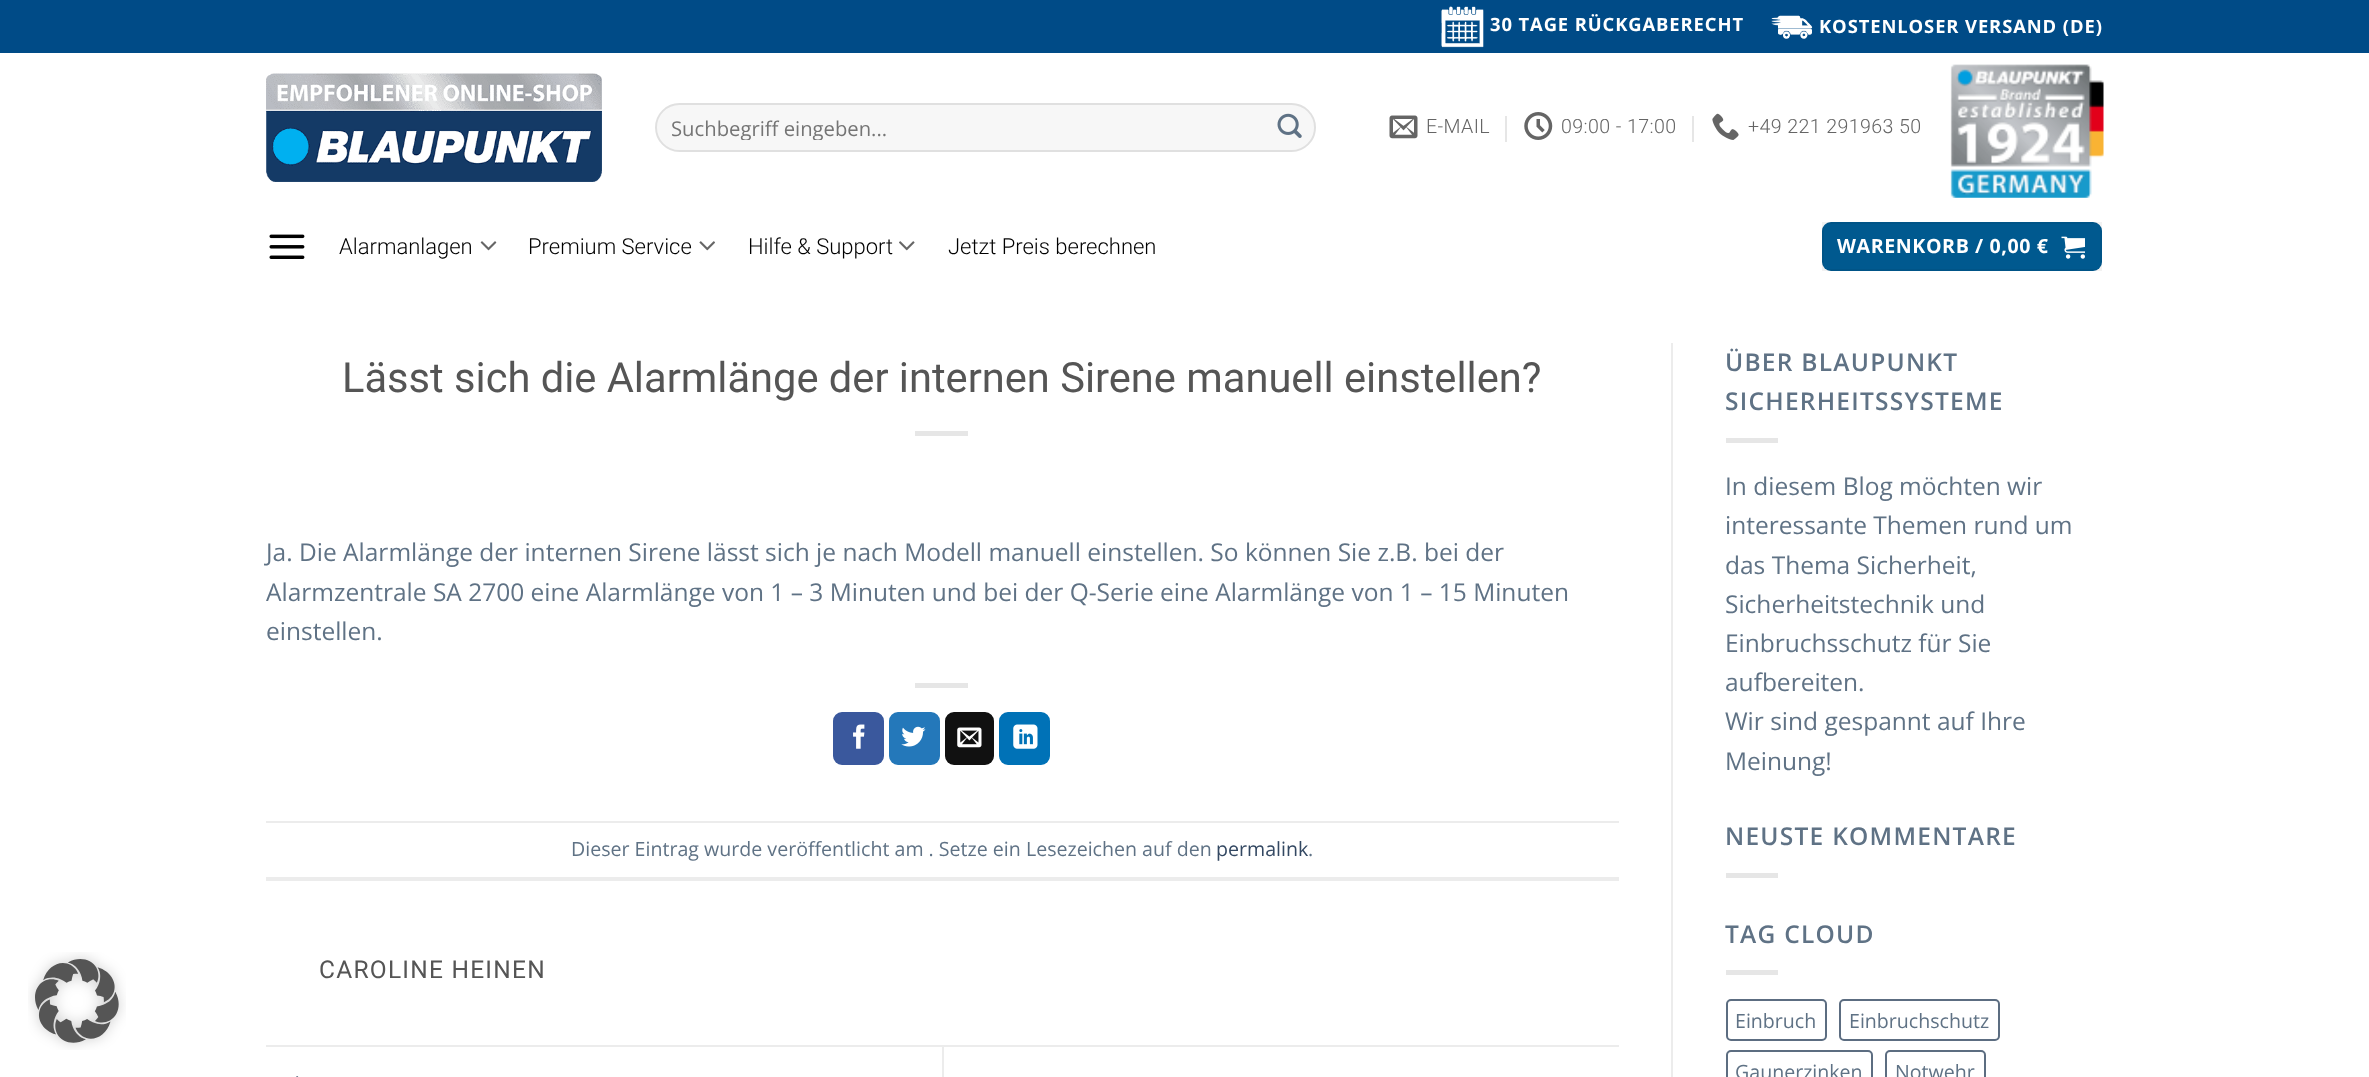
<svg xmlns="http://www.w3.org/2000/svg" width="2369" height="1077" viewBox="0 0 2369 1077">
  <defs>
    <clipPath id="clip1"><rect x="672" y="114" width="621" height="26"/></clipPath>
  </defs>
  <rect width="100%" height="100%" fill="#ffffff"/>
  <image x="28" y="952" width="98" height="98" href="img1.png"/>
  <rect x="0" y="0" width="2369" height="53" fill="#004b87"/>
  <image x="1441" y="6" width="43" height="42" href="img2.png"/>
  <text x="1490" y="31" font-family="Open Sans" font-size="18.4" font-weight="bold" letter-spacing="0.9" fill="#ffffff">30 TAGE RÜCKGABERECHT</text>
  <image x="1771" y="15" width="42" height="24" href="img3.png"/>
  <text x="1819" y="33" font-family="Open Sans" font-size="18.4" font-weight="bold" letter-spacing="0.9" fill="#ffffff">KOSTENLOSER VERSAND (DE)</text>
  <image x="266" y="73" width="336" height="109" href="img4.png"/>
  <rect x="655" y="103" width="661" height="49" rx="24.5" fill="#f7f7f7"/>
  <rect x="656" y="104" width="659" height="47" rx="23.5" fill="none" stroke="#000000" stroke-opacity="0.09" stroke-width="2"/>
  <g clip-path="url(#clip1)">
    <text x="671" y="136" font-family="Open Sans" font-size="20.25" fill="#757575">Suchbegriff eingeben...</text>
  </g>
  <image x="1277" y="113" width="25" height="25" href="img5.png"/>
  <image x="1389" y="115" width="29" height="24" href="img6.png"/>
  <text x="1426" y="133" font-family="Roboto" font-size="19.6" font-weight="300" letter-spacing="0.4" fill="#656565">E-MAIL</text>
  <rect x="1505" y="116" width="2" height="26" fill="#e6e6e6"/>
  <image x="1524" y="112" width="29" height="28" href="img7.png"/>
  <text x="1561" y="133" font-family="Roboto" font-size="19.6" font-weight="300" letter-spacing="0.4" fill="#656565">09:00 - 17:00</text>
  <rect x="1692" y="116" width="2" height="26" fill="#e6e6e6"/>
  <image x="1712" y="113" width="27" height="27" href="img8.png"/>
  <text x="1748" y="133" font-family="Roboto" font-size="19.6" font-weight="300" letter-spacing="0.4" fill="#656565">+49 221 291963 50</text>
  <image x="1950" y="64" width="154" height="134" href="img9.png"/>
  <image x="269" y="234" width="36" height="25" href="img10.png"/>
  <text x="339" y="254" font-family="Roboto" font-size="22" font-weight="300" fill="#000000">Alarmanlagen</text>
  <image x="480" y="241" width="17" height="10" href="img11.png"/>
  <text x="528" y="254" font-family="Roboto" font-size="22" font-weight="300" fill="#000000">Premium Service</text>
  <image x="699" y="241" width="16" height="10" href="img12.png"/>
  <text x="748" y="254" font-family="Roboto" font-size="22" font-weight="300" fill="#000000">Hilfe &amp; Support</text>
  <image x="899" y="241" width="16" height="10" href="img13.png"/>
  <text x="948" y="254" font-family="Roboto" font-size="22" font-weight="300" fill="#000000">Jetzt Preis berechnen</text>
  <rect x="1822" y="222" width="280" height="49" rx="9" fill="#00598f"/>
  <rect x="1823" y="223" width="278" height="47" fill="none" stroke="#000000" stroke-opacity="0.05" stroke-width="2"/>
  <text x="1837" y="253" font-family="Open Sans" font-size="19.6" font-weight="bold" letter-spacing="0.6" fill="#ffffff">WARENKORB / 0,00 €</text>
  <image x="2061" y="236" width="24" height="23" href="img14.png"/>
  <text x="342" y="392" font-family="Roboto" font-size="41.65" fill="#555555">Lässt sich die Alarmlänge der internen Sirene manuell einstellen?</text>
  <rect x="915" y="431" width="53" height="5" fill="#e6e6e6"/>
  <text x="266" y="561" font-family="Open Sans" font-size="24.5" fill="#5f7285">Ja. Die Alarmlänge der internen Sirene lässt sich je nach Modell manuell einstellen. So können Sie z.B. bei der</text>
  <text x="266" y="601" font-family="Open Sans" font-size="24.5" fill="#5f7285">Alarmzentrale SA 2700 eine Alarmlänge von 1 – 3 Minuten und bei der Q-Serie eine Alarmlänge von 1 – 15 Minuten</text>
  <text x="266" y="640" font-family="Open Sans" font-size="24.5" fill="#5f7285">einstellen.</text>
  <rect x="915" y="683" width="53" height="5" fill="#e6e6e6"/>
  <rect x="834" y="713" width="49" height="51" rx="8" fill="#3a589d" stroke="#3a589d" stroke-width="2"/>
  <image x="853" y="724" width="12" height="25" href="img15.png"/>
  <rect x="890" y="713" width="49" height="51" rx="8" fill="#2478ba" stroke="#2478ba" stroke-width="2"/>
  <image x="901" y="726" width="25" height="21" href="img16.png"/>
  <rect x="946" y="713" width="47" height="51" rx="8" fill="#111111" stroke="#111111" stroke-width="2"/>
  <image x="957" y="727" width="25" height="21" href="img17.png"/>
  <rect x="1000" y="713" width="49" height="51" rx="8" fill="#0072b7" stroke="#0072b7" stroke-width="2"/>
  <image x="1013" y="724" width="25" height="25" href="img18.png"/>
  <rect x="266" y="821" width="1353" height="2" fill="#ececec"/>
  <rect x="266" y="877" width="1353" height="4" fill="#ececec"/>
  <text x="571" y="856" font-family="Open Sans" font-size="19.6" fill="#5f7285">Dieser Eintrag wurde veröffentlicht am . Setze ein Lesezeichen auf den</text>
  <text x="1216" y="856" font-family="Open Sans" font-size="19.6" fill="#334862">permalink</text>
  <text x="1308" y="856" font-family="Open Sans" font-size="19.6" fill="#5f7285">.</text>
  <text x="319" y="978" font-family="Roboto" font-size="24.5" letter-spacing="1.25" fill="#555555">CAROLINE HEINEN</text>
  <rect x="266" y="1045" width="1353" height="2" fill="#ececec"/>
  <image x="296" y="1076" width="3" height="1" href="img19.png"/>
  <rect x="942" y="1047" width="2" height="30" fill="#ececec"/>
  <rect x="1671" y="343" width="2" height="734" fill="#ececec"/>
  <text x="1725" y="371" font-family="Open Sans" font-size="24.5" font-weight="600" letter-spacing="1.25" fill="#5f7285">ÜBER BLAUPUNKT</text>
  <text x="1725" y="410" font-family="Open Sans" font-size="24.5" font-weight="600" letter-spacing="1.25" fill="#5f7285">SICHERHEITSSYSTEME</text>
  <rect x="1726" y="438" width="52" height="5" fill="#e6e6e6"/>
  <text x="1725" y="495" font-family="Open Sans" font-size="24.5" fill="#5f7285">In diesem Blog möchten wir</text>
  <text x="1725" y="534" font-family="Open Sans" font-size="24.5" fill="#5f7285">interessante Themen rund um</text>
  <text x="1725" y="574" font-family="Open Sans" font-size="24.5" fill="#5f7285">das Thema Sicherheit,</text>
  <text x="1725" y="613" font-family="Open Sans" font-size="24.5" fill="#5f7285">Sicherheitstechnik und</text>
  <text x="1725" y="652" font-family="Open Sans" font-size="24.5" fill="#5f7285">Einbruchsschutz für Sie</text>
  <text x="1725" y="691" font-family="Open Sans" font-size="24.5" fill="#5f7285">aufbereiten.</text>
  <text x="1725" y="730" font-family="Open Sans" font-size="24.5" fill="#5f7285">Wir sind gespannt auf Ihre</text>
  <text x="1725" y="770" font-family="Open Sans" font-size="24.5" fill="#5f7285">Meinung!</text>
  <text x="1725" y="845" font-family="Open Sans" font-size="24.5" font-weight="600" letter-spacing="1.25" fill="#5f7285">NEUSTE KOMMENTARE</text>
  <rect x="1726" y="873" width="52" height="5" fill="#e6e6e6"/>
  <text x="1725" y="943" font-family="Open Sans" font-size="24.5" font-weight="600" letter-spacing="1.25" fill="#5f7285">TAG CLOUD</text>
  <rect x="1726" y="970" width="52" height="5" fill="#e6e6e6"/>
  <rect x="1727" y="1000" width="99" height="40" rx="4" fill="none" stroke="#5c6d81" stroke-width="2"/>
  <text x="1735" y="1028" font-family="Open Sans" font-size="19.6" fill="#5f7285">Einbruch</text>
  <rect x="1840" y="1000" width="159" height="40" rx="4" fill="none" stroke="#5c6d81" stroke-width="2"/>
  <text x="1849" y="1028" font-family="Open Sans" font-size="19.6" fill="#5f7285">Einbruchschutz</text>
  <rect x="1727" y="1051" width="145" height="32" rx="4" fill="none" stroke="#5c6d81" stroke-width="2"/>
  <text x="1735" y="1079" font-family="Open Sans" font-size="19.6" fill="#5f7285">Gaunerzinken</text>
  <rect x="1886" y="1051" width="99" height="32" rx="4" fill="none" stroke="#5c6d81" stroke-width="2"/>
  <text x="1895" y="1079" font-family="Open Sans" font-size="19.6" fill="#5f7285">Notwehr</text>
</svg>
